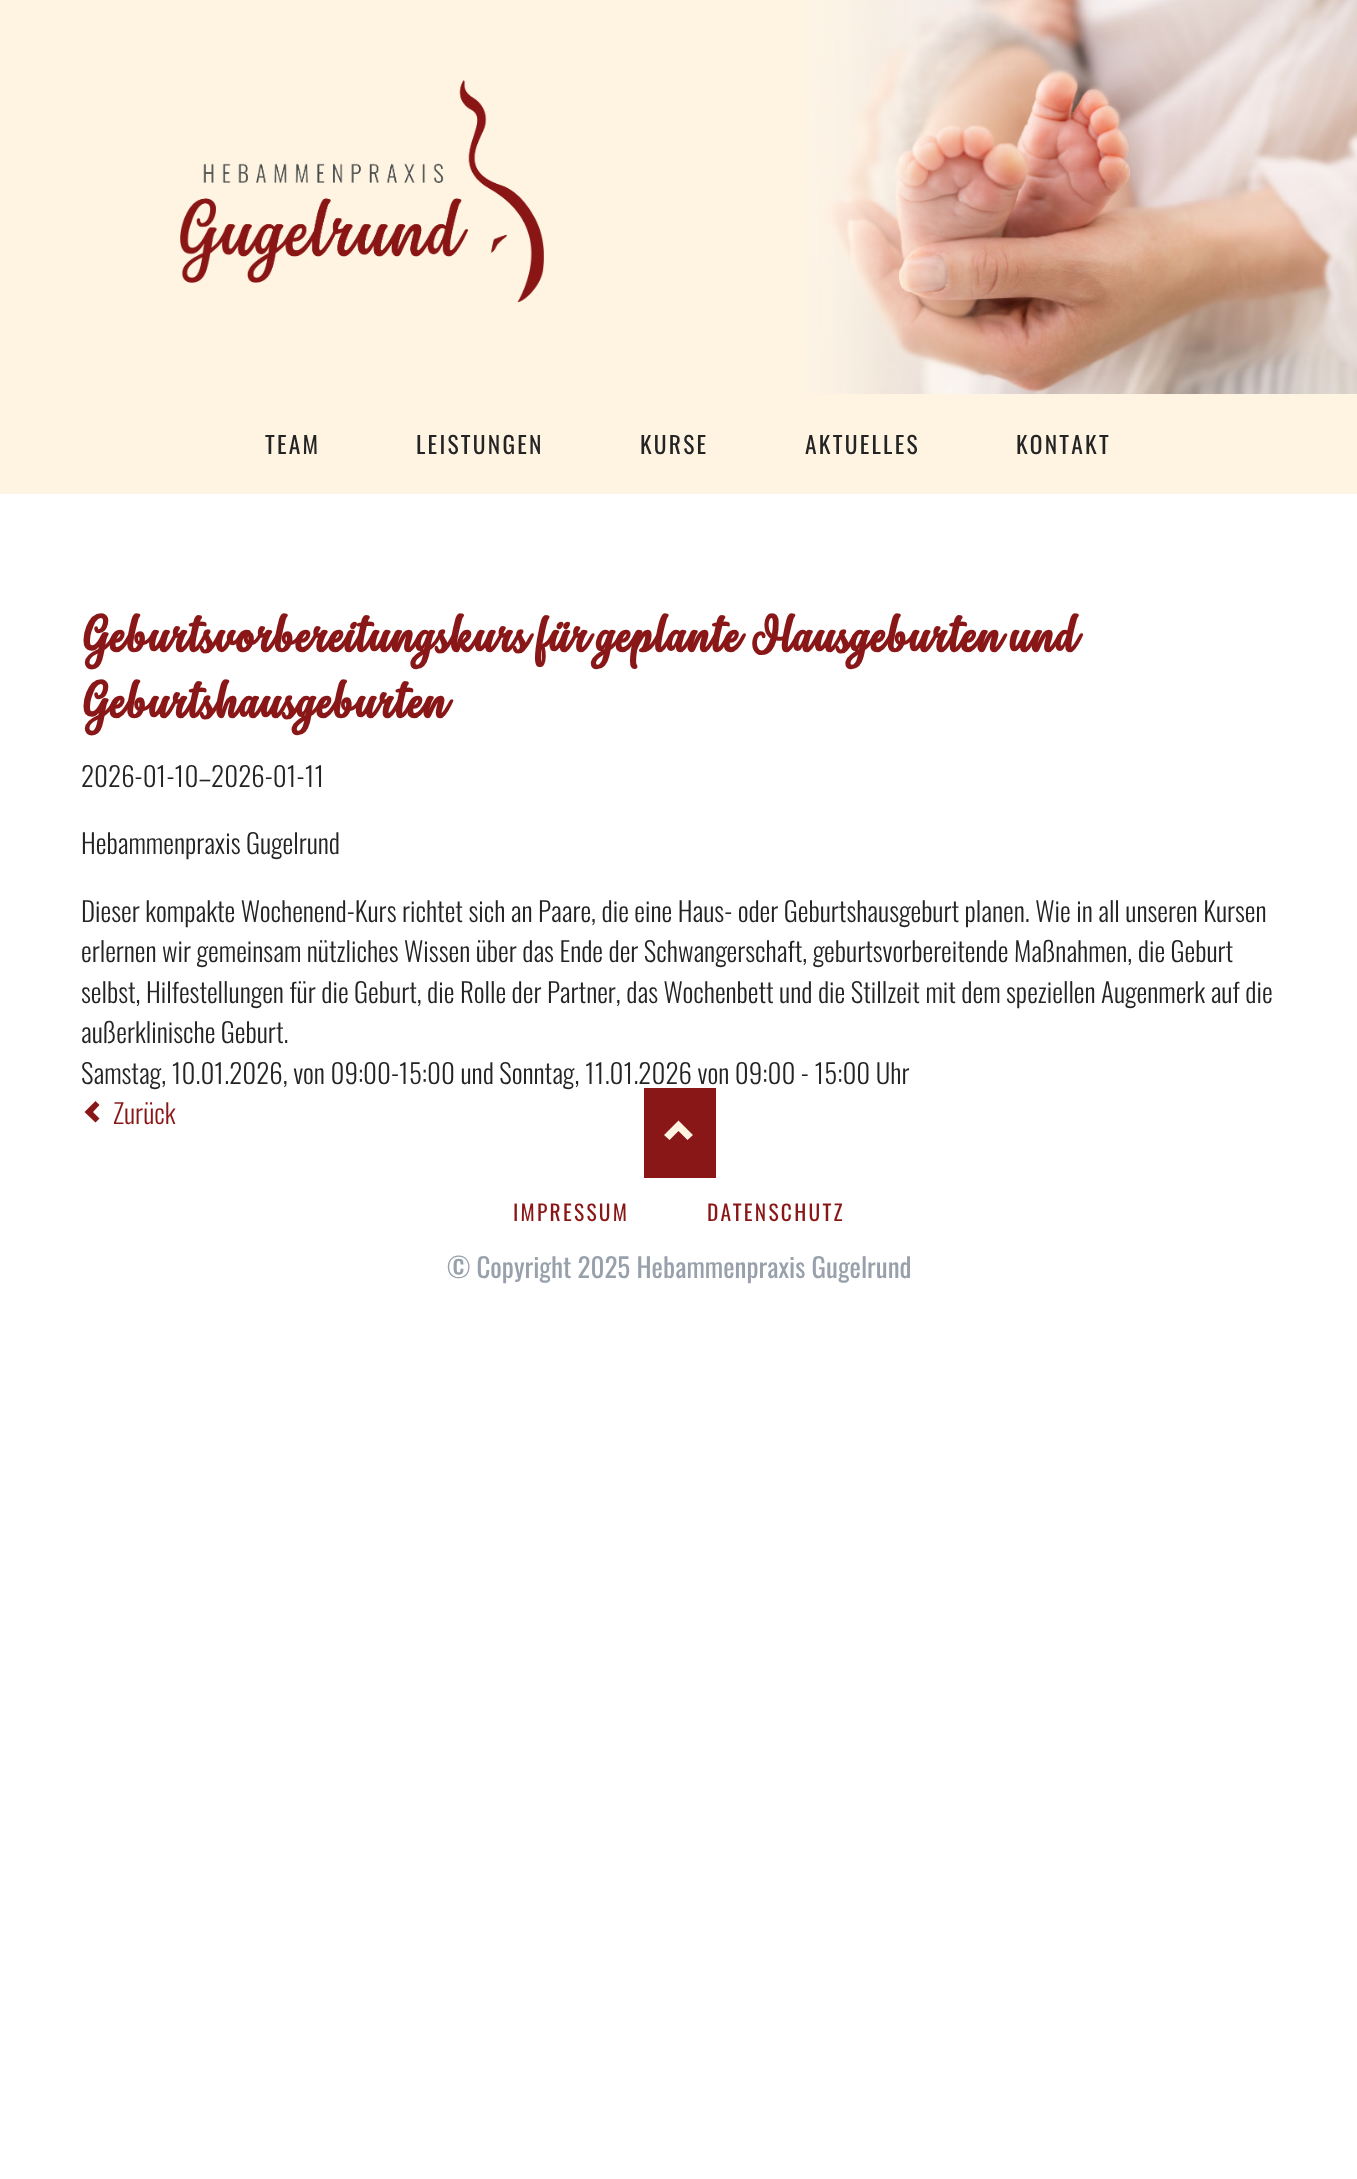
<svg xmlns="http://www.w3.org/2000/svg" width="1357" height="2179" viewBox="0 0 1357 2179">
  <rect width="100%" height="100%" fill="#ffffff"/>
  <rect x="0" y="0" width="807" height="394" fill="#fff4e2"/>
  <image x="180" y="80" width="364" height="222" href="img1.png"/>
  <image x="807" y="0" width="550" height="394" href="img2.png"/>
  <rect x="0" y="394" width="1357" height="100" fill="#fff4e2"/>
  <text x="265" y="454" font-family="Oswald" font-size="23.5" letter-spacing="2.25" fill="#242424">TEAM</text>
  <text x="416" y="454" font-family="Oswald" font-size="23.5" letter-spacing="2.25" fill="#242424">LEISTUNGEN</text>
  <text x="640" y="454" font-family="Oswald" font-size="23.5" letter-spacing="2.25" fill="#242424">KURSE</text>
  <text x="805" y="454" font-family="Oswald" font-size="23.5" letter-spacing="2.25" fill="#242424">AKTUELLES</text>
  <text x="1016" y="454" font-family="Oswald" font-size="23.5" letter-spacing="2.25" fill="#242424">KONTAKT</text>
  <text x="81" y="652" font-family="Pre" font-size="50.4" font-weight="bold" fill="#8a1717">Geburtsvorbereitungskurs für geplante Hausgeburten und</text>
  <text x="81" y="718" font-family="Pre" font-size="50.4" font-weight="bold" fill="#8a1717">Geburtshausgeburten</text>
  <text x="81" y="787" font-family="Oswald" font-size="27" font-weight="300" fill="#242424">2026-01-10–2026-01-11</text>
  <text x="81" y="854" font-family="Oswald" font-size="27" font-weight="300" fill="#242424">Hebammenpraxis Gugelrund</text>
  <text x="81" y="922" font-family="Oswald" font-size="27" font-weight="300" fill="#242424">Dieser kompakte Wochenend-Kurs richtet sich an Paare, die eine Haus- oder Geburtshausgeburt planen. Wie in all unseren Kursen</text>
  <text x="81" y="962" font-family="Oswald" font-size="27" font-weight="300" fill="#242424">erlernen wir gemeinsam nützliches Wissen über das Ende der Schwangerschaft, geburtsvorbereitende Maßnahmen, die Geburt</text>
  <text x="81" y="1003" font-family="Oswald" font-size="27" font-weight="300" fill="#242424">selbst, Hilfestellungen für die Geburt, die Rolle der Partner, das Wochenbett und die Stillzeit mit dem speziellen Augenmerk auf die</text>
  <text x="81" y="1043" font-family="Oswald" font-size="27" font-weight="300" fill="#242424">außerklinische Geburt.</text>
  <text x="81" y="1084" font-family="Oswald" font-size="27" font-weight="300" fill="#242424">Samstag, 10.01.2026, von 09:00-15:00 und Sonntag, 11.01.2026 von 09:00 - 15:00 Uhr</text>
  <path d="M95.5 1122.5L99.5 1118.5L93 1112L99.5 1105L95.5 1101L84.5 1112Z" fill="#8a1717"/>
  <text x="113" y="1124" font-family="Oswald" font-size="27" font-weight="300" fill="#8a1717">Zurück</text>
  <rect x="644" y="1088" width="72" height="90" fill="#8a1717"/>
  <path d="M664 1135L669.5 1140L678.5 1131L687.5 1140L693 1135L678.5 1120.5Z" fill="#fff4e2"/>
  <text x="513" y="1221" font-family="Oswald" font-size="21.5" letter-spacing="2.25" fill="#8a1717">IMPRESSUM</text>
  <text x="707" y="1221" font-family="Oswald" font-size="21.5" letter-spacing="2.25" fill="#8a1717">DATENSCHUTZ</text>
  <text x="447" y="1278" font-family="Oswald" font-size="27" fill="#98a0ab">© Copyright 2025 Hebammenpraxis Gugelrund</text>
</svg>
